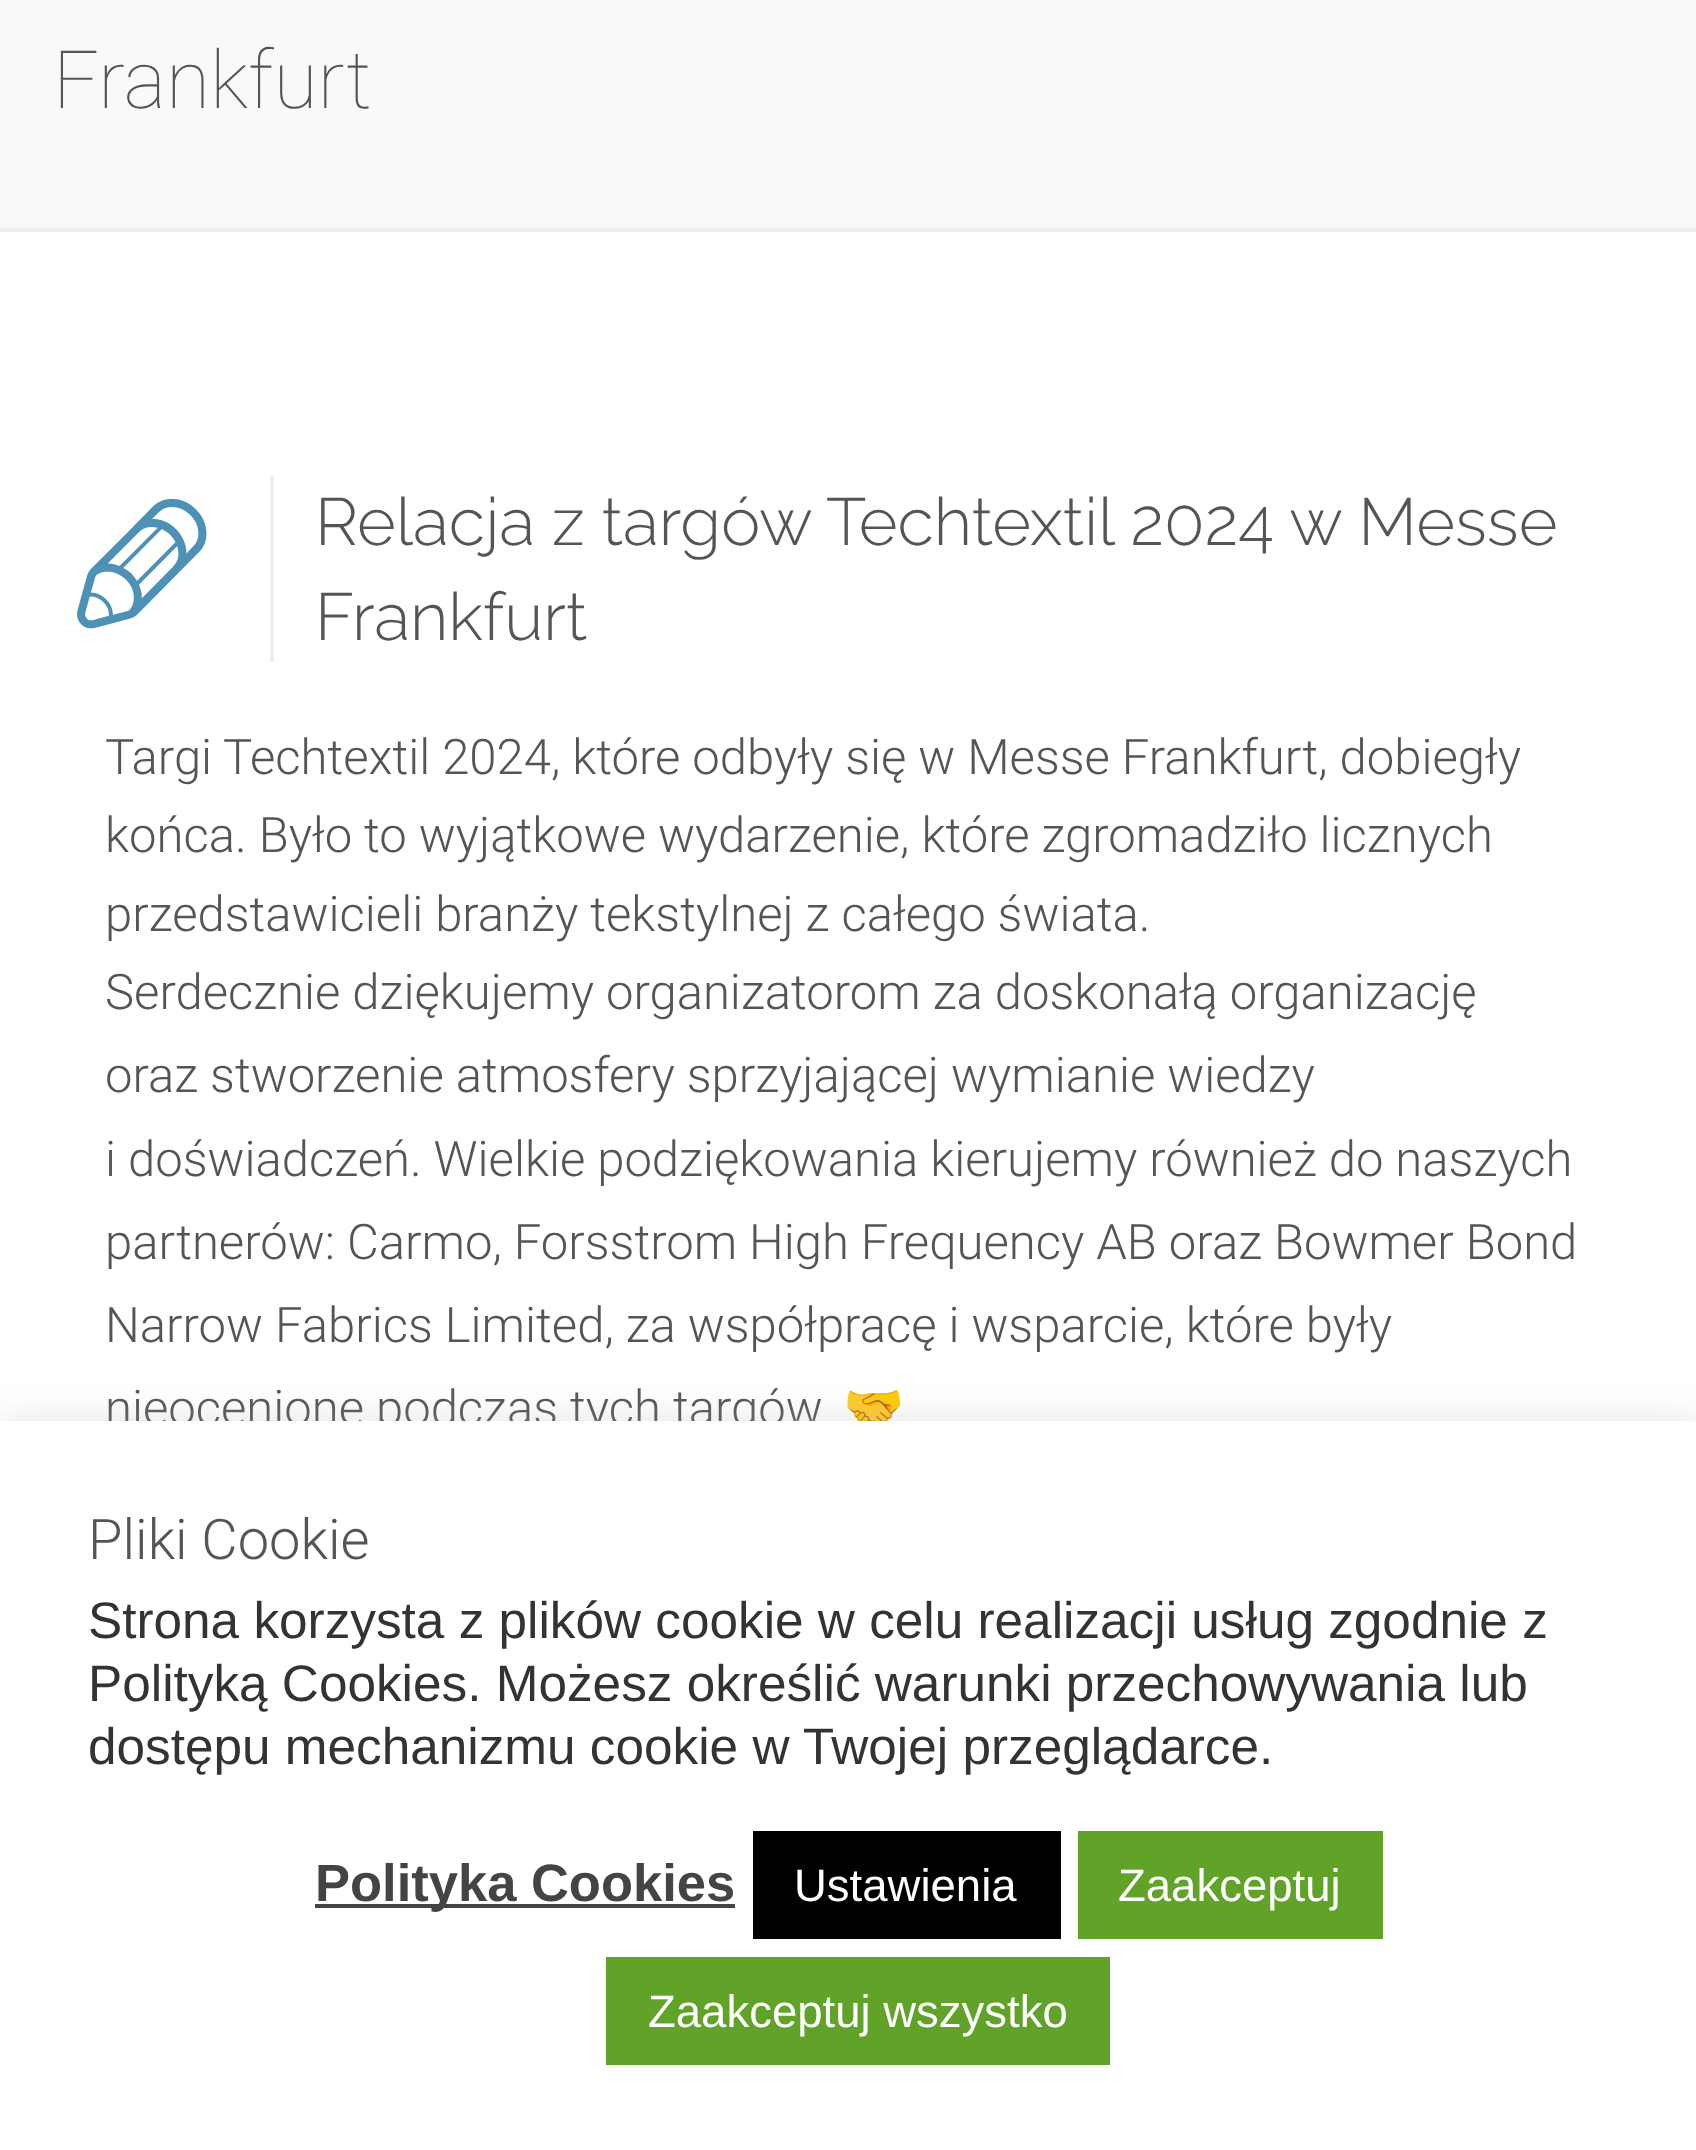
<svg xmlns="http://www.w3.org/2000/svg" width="1696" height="2150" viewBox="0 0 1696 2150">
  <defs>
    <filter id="blur1" x="-50%" y="-200%" width="200%" height="500%"><feGaussianBlur stdDeviation="17.5"/></filter>
  </defs>
  <rect width="100%" height="100%" fill="#ffffff"/>
  <rect x="0" y="0" width="1696" height="228" fill="#f9f9f9"/>
  <rect x="0" y="228" width="1696" height="4" fill="#eeeeee"/>
  <text x="53" y="108" font-family="Roboto" font-size="80.5" font-weight="100" fill="#555555">Frankfurt</text>
  <rect x="270" y="476" width="4" height="186" fill="#eeeeee"/>
  <image x="77" y="498" width="130" height="131" href="img1.png"/>
  <text x="315" y="545" font-family="Raleway" font-size="66.5" font-weight="300" fill="#555555">Relacja z targów Techtextil 2024 w Messe</text>
  <text x="315" y="640" font-family="Raleway" font-size="66.5" font-weight="300" fill="#555555">Frankfurt</text>
  <text x="105" y="774" font-family="Roboto" font-size="49" font-weight="300" fill="#555555">Targi Techtextil 2024, które odbyły się w Messe Frankfurt, dobiegły</text>
  <text x="105" y="852" font-family="Roboto" font-size="49" font-weight="300" fill="#555555">końca. Było to wyjątkowe wydarzenie, które zgromadziło licznych</text>
  <text x="105" y="931" font-family="Roboto" font-size="49" font-weight="300" fill="#555555">przedstawicieli branży tekstylnej z całego świata.</text>
  <text x="105" y="1009" font-family="Roboto" font-size="49" font-weight="300" fill="#555555">Serdecznie dziękujemy organizatorom za doskonałą organizację</text>
  <text x="105" y="1092" font-family="Roboto" font-size="49" font-weight="300" fill="#555555">oraz stworzenie atmosfery sprzyjającej wymianie wiedzy</text>
  <text x="105" y="1176" font-family="Roboto" font-size="49" font-weight="300" fill="#555555">i doświadczeń. Wielkie podziękowania kierujemy również do naszych</text>
  <text x="105" y="1259" font-family="Roboto" font-size="49" font-weight="300" fill="#555555">partnerów: Carmo, Forsstrom High Frequency AB oraz Bowmer Bond</text>
  <text x="105" y="1342" font-family="Roboto" font-size="49" font-weight="300" fill="#555555">Narrow Fabrics Limited, za współpracę i wsparcie, które były</text>
  <text x="105" y="1425" font-family="Roboto" font-size="49" font-weight="300" fill="#555555">nieocenione podczas tych targów.</text>
  <text x="843" y="1425" font-family="Noto Color Emoji" font-size="49" fill="#555555">🤝</text>
  <rect x="0" y="1418" width="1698" height="731" fill="#acabab" fill-opacity="0.3" filter="url(#blur1)"/>
  <rect x="0" y="1421" width="1696" height="729" fill="#ffffff"/>
  <text x="88" y="1559" font-family="Roboto" font-size="56" font-weight="300" fill="#555555">Pliki Cookie</text>
  <text x="88" y="1638" font-family="Liberation Sans" font-size="51.3" fill="#333333">Strona korzysta z plików cookie w celu realizacji usług zgodnie z</text>
  <text x="88" y="1701" font-family="Liberation Sans" font-size="51.3" fill="#333333">Polityką Cookies. Możesz określić warunki przechowywania lub</text>
  <text x="88" y="1764" font-family="Liberation Sans" font-size="51.3" fill="#333333">dostępu mechanizmu cookie w Twojej przeglądarce.</text>
  <rect x="315" y="1904" width="420" height="4" fill="#444444"/>
  <text x="315" y="1901" font-family="Liberation Sans" font-size="52.5" font-weight="bold" fill="#444444">Polityka Cookies</text>
  <rect x="753" y="1831" width="308" height="108" fill="#000000"/>
  <text x="794" y="1901" font-family="Liberation Sans" font-size="45.5" fill="#ffffff">Ustawienia</text>
  <rect x="1078" y="1831" width="305" height="108" fill="#61a229"/>
  <text x="1118" y="1901" font-family="Liberation Sans" font-size="45.5" fill="#ffffff">Zaakceptuj</text>
  <rect x="606" y="1957" width="504" height="108" fill="#61a229"/>
  <text x="648" y="2027" font-family="Liberation Sans" font-size="45.5" fill="#ffffff">Zaakceptuj wszystko</text>
</svg>
